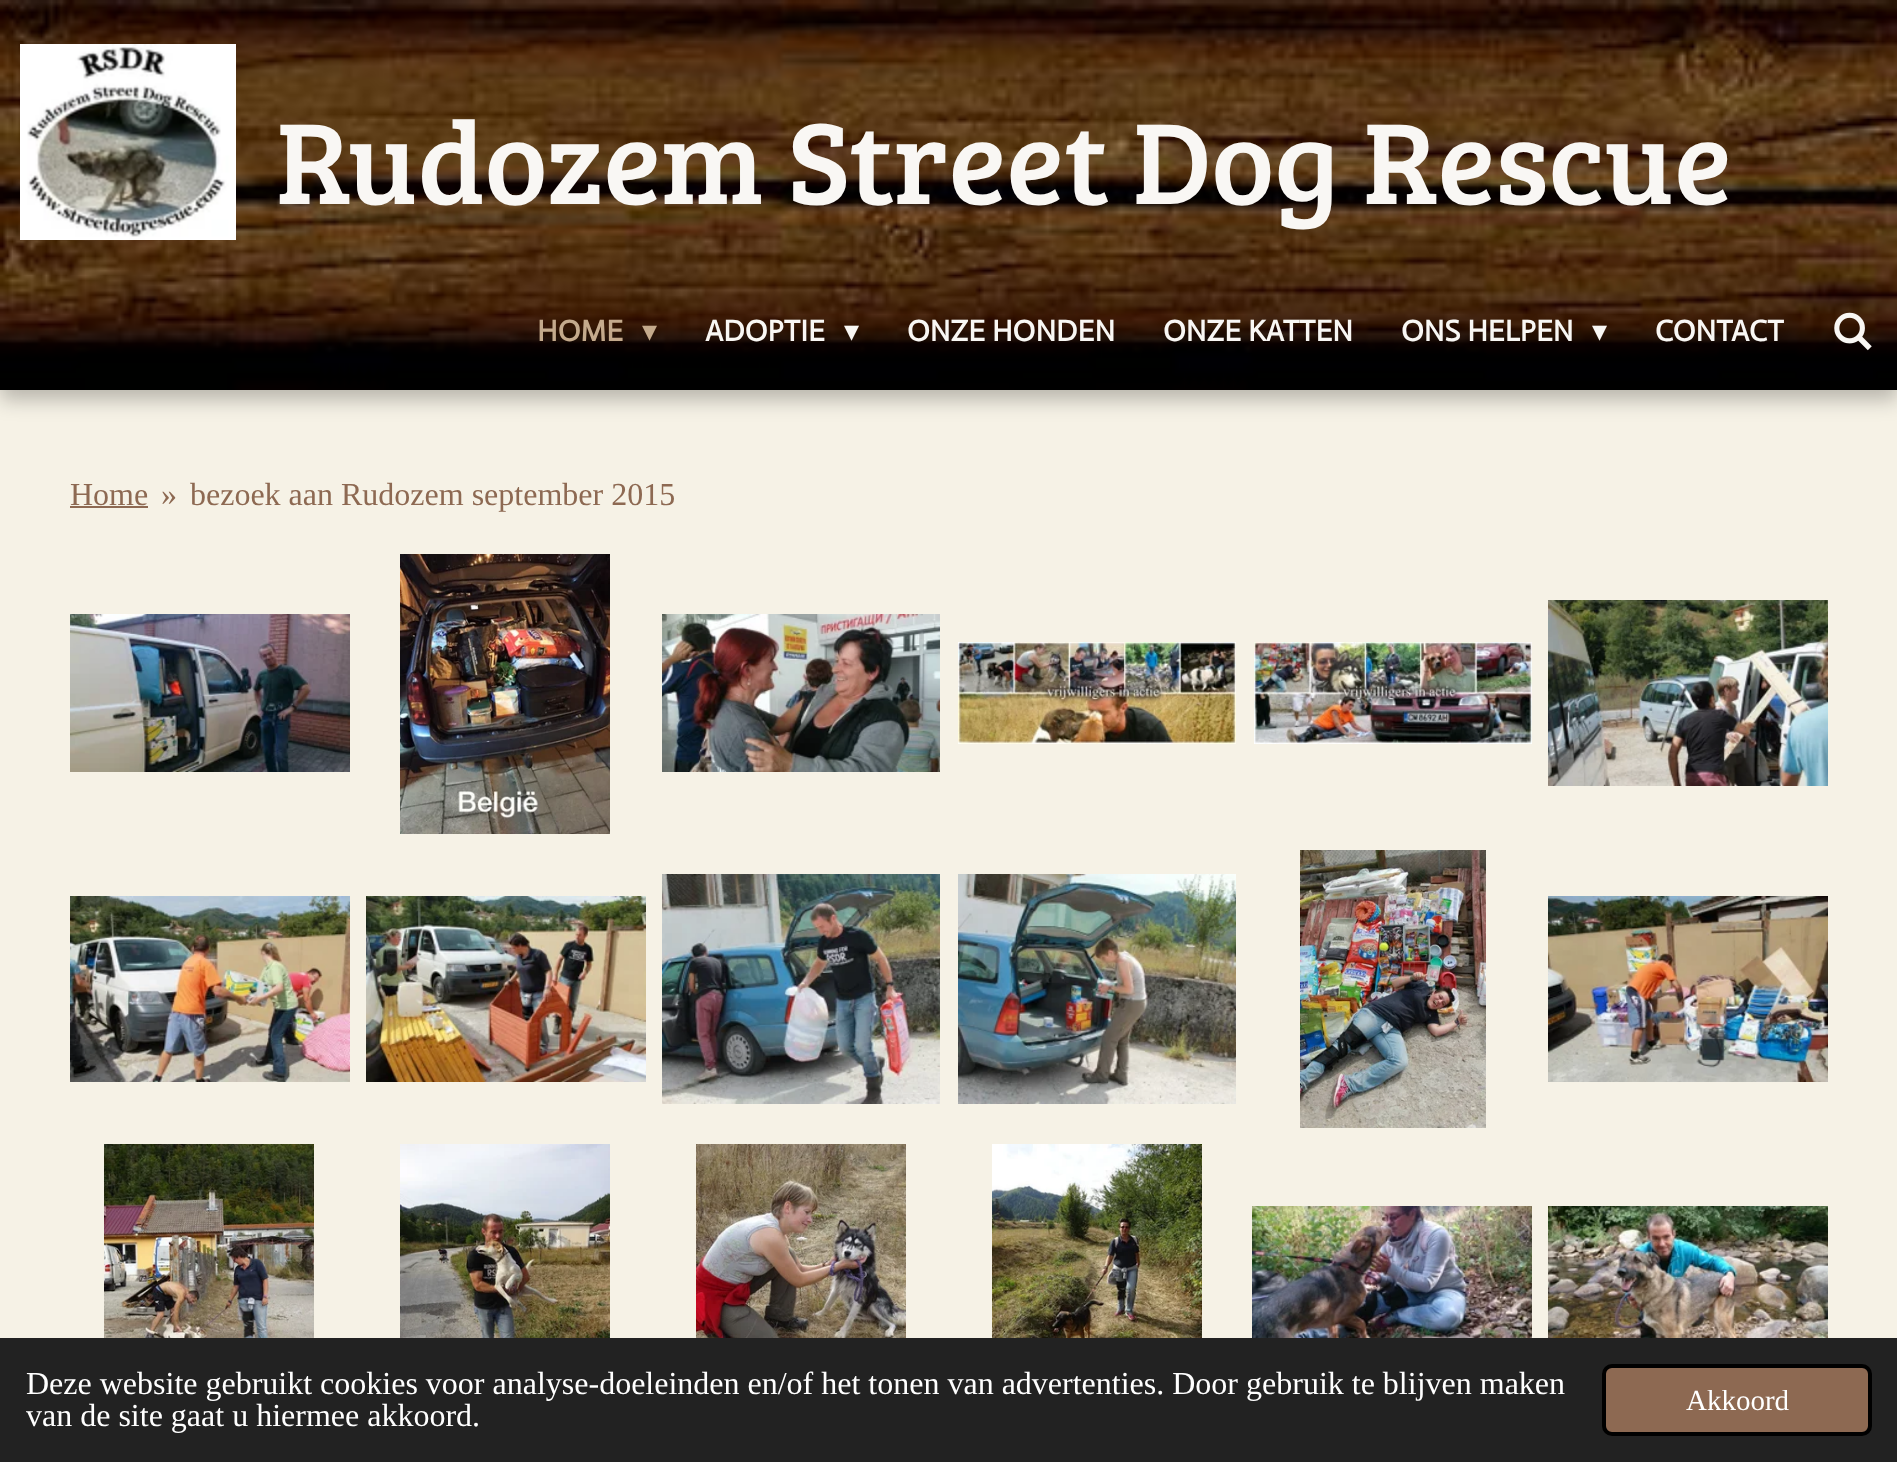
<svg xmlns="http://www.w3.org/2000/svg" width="1897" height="1462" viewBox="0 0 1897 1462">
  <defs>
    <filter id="blur1" x="-50%" y="-200%" width="200%" height="500%"><feGaussianBlur stdDeviation="10"/></filter>
  </defs>
  <rect width="100%" height="100%" fill="#f6f2e6"/>
  <rect x="0" y="10" width="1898" height="390" fill="#000000" fill-opacity="0.25" filter="url(#blur1)"/>
  <image x="0" y="0" width="1897" height="390" href="img1.png"/>
  <image x="20" y="44" width="216" height="196" href="img2.png"/>
  <text x="276" y="204" font-family="Bree Serif" font-size="119" fill="#f9f7f4">Rudozem Street Dog Rescue</text>
  <text x="537" y="341" font-family="Actor" font-size="30" font-weight="bold" fill="#c4aa8c">HOME</text>
  <text x="642" y="341" font-family="DejaVu Sans" font-size="30" fill="#c4aa8c">▾</text>
  <text x="705" y="341" font-family="Actor" font-size="30" font-weight="bold" fill="#f9f7f4">ADOPTIE</text>
  <text x="844" y="341" font-family="DejaVu Sans" font-size="30" fill="#f9f7f4">▾</text>
  <text x="907" y="341" font-family="Actor" font-size="30" font-weight="bold" fill="#f9f7f4">ONZE HONDEN</text>
  <text x="1163" y="341" font-family="Actor" font-size="30" font-weight="bold" fill="#f9f7f4">ONZE KATTEN</text>
  <text x="1401" y="341" font-family="Actor" font-size="30" font-weight="bold" fill="#f9f7f4">ONS HELPEN</text>
  <text x="1592" y="341" font-family="DejaVu Sans" font-size="30" fill="#f9f7f4">▾</text>
  <text x="1655" y="341" font-family="Actor" font-size="30" font-weight="bold" fill="#f9f7f4">CONTACT</text>
  <image x="1834" y="312" width="38" height="39" href="img3.png"/>
  <text x="70" y="505" font-family="Liberation Serif" font-size="32" fill="#8d6952">Home</text>
  <rect x="70" y="506" width="78" height="2" fill="#8d6952"/>
  <text x="161" y="505" font-family="Liberation Serif" font-size="32" fill="#8d6952">»</text>
  <text x="190" y="505" font-family="Liberation Serif" font-size="32" fill="#8d6952">bezoek aan Rudozem september 2015</text>
  <image x="70" y="614" width="280" height="158" href="img4.png"/>
  <image x="400" y="554" width="210" height="280" href="img5.png"/>
  <image x="662" y="614" width="278" height="158" href="img6.png"/>
  <image x="958" y="642" width="278" height="102" href="img7.png"/>
  <image x="1254" y="642" width="278" height="102" href="img8.png"/>
  <image x="1548" y="600" width="280" height="186" href="img9.png"/>
  <image x="70" y="896" width="280" height="186" href="img10.png"/>
  <image x="366" y="896" width="280" height="186" href="img11.png"/>
  <image x="662" y="874" width="278" height="230" href="img12.png"/>
  <image x="958" y="874" width="278" height="230" href="img13.png"/>
  <image x="1300" y="850" width="186" height="278" href="img14.png"/>
  <image x="1548" y="896" width="280" height="186" href="img15.png"/>
  <image x="104" y="1144" width="210" height="194" href="img16.png"/>
  <image x="400" y="1144" width="210" height="194" href="img17.png"/>
  <image x="696" y="1144" width="210" height="194" href="img18.png"/>
  <image x="992" y="1144" width="210" height="194" href="img19.png"/>
  <image x="1252" y="1206" width="280" height="132" href="img20.png"/>
  <image x="1548" y="1206" width="280" height="132" href="img21.png"/>
  <rect x="0" y="1338" width="1897" height="124" fill="#222222"/>
  <text x="26" y="1394" font-family="Liberation Serif" font-size="32" fill="#ffffff">Deze website gebruikt cookies voor analyse-doeleinden en/of het tonen van advertenties. Door gebruik te blijven maken</text>
  <text x="26" y="1426" font-family="Liberation Serif" font-size="32" fill="#ffffff">van de site gaat u hiermee akkoord.</text>
  <rect x="1604" y="1366" width="266" height="68" rx="8" fill="#8d6952" stroke="#000000" stroke-width="4"/>
  <text x="1686" y="1410" font-family="Liberation Serif" font-size="29" fill="#ffffff">Akkoord</text>
</svg>
